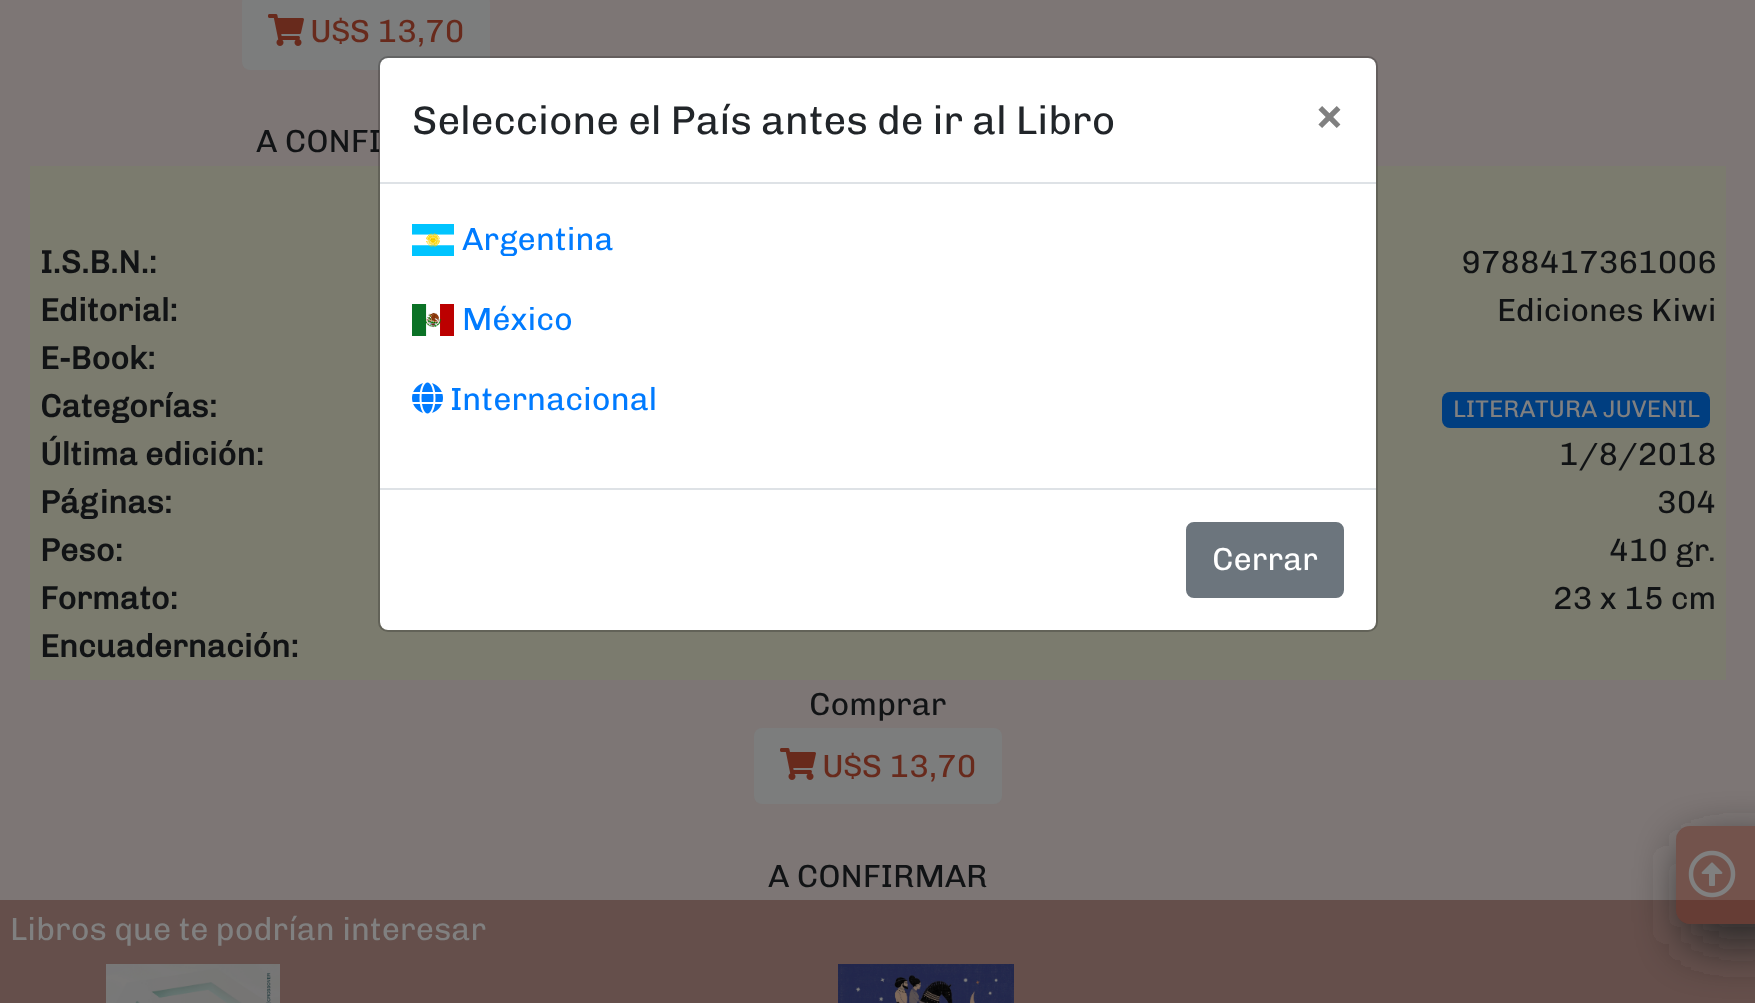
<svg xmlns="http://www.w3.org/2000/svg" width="1755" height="1003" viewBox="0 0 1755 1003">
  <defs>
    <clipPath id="clip1"><path d="M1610 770H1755V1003H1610ZM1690 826H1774C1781.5 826 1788 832.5 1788 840V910C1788 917.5 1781.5 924 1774 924H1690C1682.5 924 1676 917.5 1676 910V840C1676 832.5 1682.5 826 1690 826Z" clip-rule="evenodd"/></clipPath>
    <filter id="blur1" x="-50%" y="-200%" width="200%" height="500%"><feGaussianBlur stdDeviation="25"/></filter>
  </defs>
  <rect width="100%" height="100%" fill="#7d7675"/>
  <rect x="242" y="-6" width="248" height="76" rx="8" fill="#7c7d7d"/>
  <image x="268" y="14" width="36" height="32" href="img1.png"/>
  <text x="310" y="42" font-family="Chivo" font-size="32" font-weight="500" fill="#682a1c">U$S 13,70</text>
  <text x="256" y="152" font-family="Chivo" font-size="32" font-weight="500" fill="#111315">A CONFI</text>
  <rect x="30" y="166" width="1696" height="514" fill="#7b7b6e"/>
  <text x="40" y="273" font-family="Chivo" font-size="32" font-weight="bold" fill="#111315">I.S.B.N.:</text>
  <text x="1461" y="273" font-family="Chivo" font-size="32" font-weight="500" fill="#111315">9788417361006</text>
  <text x="40" y="321" font-family="Chivo" font-size="32" font-weight="bold" fill="#111315">Editorial:</text>
  <text x="1497" y="321" font-family="Chivo" font-size="32" font-weight="500" fill="#111315">Ediciones Kiwi</text>
  <text x="40" y="369" font-family="Chivo" font-size="32" font-weight="bold" fill="#111315">E-Book:</text>
  <text x="40" y="417" font-family="Chivo" font-size="32" font-weight="bold" fill="#111315">Categorías:</text>
  <rect x="1442" y="392" width="268" height="36" rx="8" fill="#003e80"/>
  <text x="1453" y="417" font-family="Chivo" font-size="24" font-weight="500" fill="#808080">LITERATURA JUVENIL</text>
  <text x="40" y="465" font-family="Chivo" font-size="32" font-weight="bold" fill="#111315">Última edición:</text>
  <text x="1559" y="465" font-family="Chivo" font-size="32" font-weight="500" fill="#111315">1/8/2018</text>
  <text x="40" y="513" font-family="Chivo" font-size="32" font-weight="bold" fill="#111315">Páginas:</text>
  <text x="1657" y="513" font-family="Chivo" font-size="32" font-weight="500" fill="#111315">304</text>
  <text x="40" y="561" font-family="Chivo" font-size="32" font-weight="bold" fill="#111315">Peso:</text>
  <text x="1609" y="561" font-family="Chivo" font-size="32" font-weight="500" fill="#111315">410 gr.</text>
  <text x="40" y="609" font-family="Chivo" font-size="32" font-weight="bold" fill="#111315">Formato:</text>
  <text x="1553" y="609" font-family="Chivo" font-size="32" font-weight="500" fill="#111315">23 x 15 cm</text>
  <text x="40" y="657" font-family="Chivo" font-size="32" font-weight="bold" fill="#111315">Encuadernación:</text>
  <text x="809" y="715" font-family="Chivo" font-size="32" font-weight="500" fill="#111315">Comprar</text>
  <rect x="754" y="728" width="248" height="76" rx="8" fill="#7c7d7d"/>
  <image x="780" y="748" width="36" height="32" href="img1.png"/>
  <text x="822" y="777" font-family="Chivo" font-size="32" font-weight="500" fill="#682a1c">U$S 13,70</text>
  <text x="768" y="887" font-family="Chivo" font-size="32" font-weight="500" fill="#111315">A CONFIRMAR</text>
  <rect x="380" y="58" width="996" height="572" rx="8" fill="#ffffff"/>
  <rect x="379" y="57" width="998" height="574" rx="9" fill="none" stroke="#000000" stroke-opacity="0.2" stroke-width="2"/>
  <rect x="380" y="182" width="996" height="2" fill="#dee2e6"/>
  <text x="412" y="134" font-family="Chivo" font-size="40" font-weight="500" fill="#212529">Seleccione el País antes de ir al Libro</text>
  <text x="1314" y="130" font-family="Chivo" font-size="48" font-weight="bold" fill="#808080">×</text>
  <image x="412" y="224" width="42" height="32" href="img2.png"/>
  <text x="462" y="250" font-family="Chivo" font-size="32" font-weight="500" fill="#007bff">Argentina</text>
  <image x="412" y="304" width="42" height="32" href="img3.png"/>
  <text x="462" y="330" font-family="Chivo" font-size="32" font-weight="500" fill="#007bff">México</text>
  <image x="412" y="382" width="31" height="32" href="img4.png"/>
  <text x="450" y="410" font-family="Chivo" font-size="32" font-weight="500" fill="#007bff">Internacional</text>
  <rect x="380" y="488" width="996" height="2" fill="#dee2e6"/>
  <rect x="1187" y="523" width="156" height="74" rx="7" fill="#6c757d" stroke="#6c757d" stroke-width="2"/>
  <text x="1212" y="570" font-family="Chivo" font-size="32" font-weight="500" fill="#ffffff">Cerrar</text>
  <rect x="0" y="900" width="1755" height="103" fill="#654f4b"/>
  <text x="10" y="940" font-family="Chivo" font-size="32" font-weight="500" fill="#808080">Libros que te podrían interesar</text>
  <image x="106" y="964" width="174" height="39" href="img5.png"/>
  <image x="838" y="964" width="176" height="39" href="img6.png"/>
  <g clip-path="url(#clip1)">
    <rect x="1686" y="846" width="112" height="98" rx="14" fill="#2b2b2b" filter="url(#blur1)"/>
  </g>
  <rect x="1676" y="826" width="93" height="98" rx="14" fill="#682a1c" fill-opacity="0.46"/>
  <image x="1688" y="850" width="48" height="48" href="img7.png"/>
</svg>
